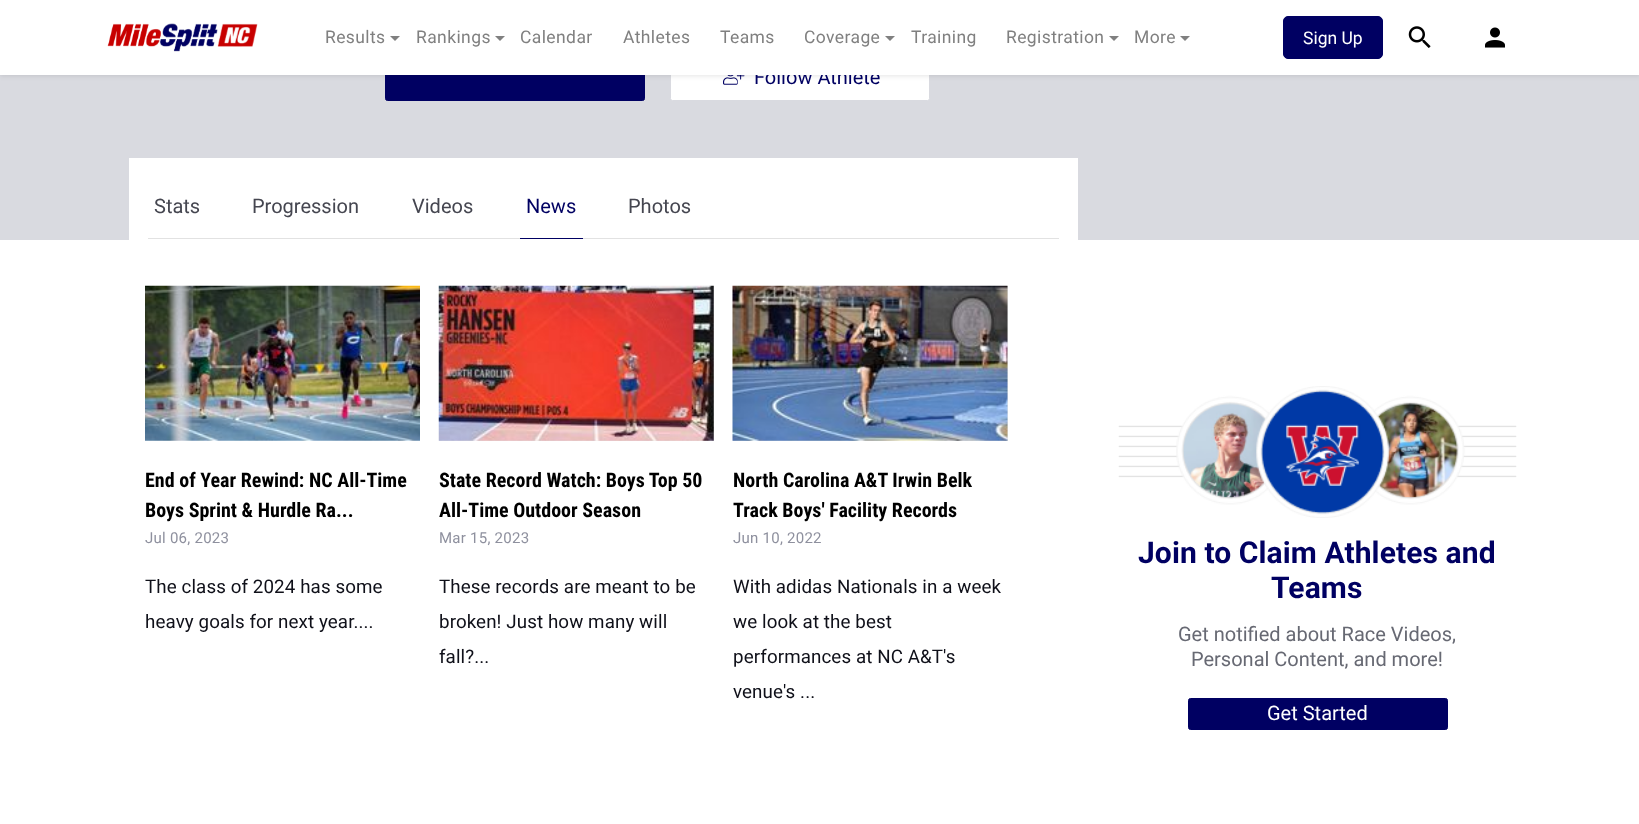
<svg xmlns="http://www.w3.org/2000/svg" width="1639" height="824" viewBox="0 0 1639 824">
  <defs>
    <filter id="blur1" x="-50%" y="-200%" width="200%" height="500%"><feGaussianBlur stdDeviation="2.5"/></filter>
  </defs>
  <rect width="100%" height="100%" fill="#ffffff"/>
  <rect x="0" y="75" width="1639" height="165" fill="#d9dae0"/>
  <rect x="385.5" y="51.5" width="259" height="49" rx="2" fill="#000062" stroke="#000062"/>
  <rect x="670.5" y="51.5" width="259" height="49" rx="2" fill="#ffffff" stroke="#d9dae0"/>
  <image x="723" y="75" width="22" height="10" href="img4.png"/>
  <rect x="0" y="1" width="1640" height="75" fill="#000000" fill-opacity="0.1" filter="url(#blur1)"/>
  <text x="754" y="84" font-family="Roboto" font-size="20" fill="#000062">Follow Athlete</text>
  <rect x="0" y="0" width="1639" height="75" fill="#ffffff"/>
  <image x="107" y="23" width="151" height="29" href="img1.png"/>
  <text x="325" y="43" font-family="Roboto" font-size="17.5" letter-spacing="0.4" fill="#808080">Results</text>
  <path d="M390 36H400L395 41Z" fill="#808080"/>
  <text x="416" y="43" font-family="Roboto" font-size="17.5" letter-spacing="0.4" fill="#808080">Rankings</text>
  <path d="M495 36H505L500 41Z" fill="#808080"/>
  <text x="520" y="43" font-family="Roboto" font-size="17.5" letter-spacing="0.4" fill="#808080">Calendar</text>
  <text x="623" y="43" font-family="Roboto" font-size="17.5" letter-spacing="0.4" fill="#808080">Athletes</text>
  <text x="720" y="43" font-family="Roboto" font-size="17.5" letter-spacing="0.4" fill="#808080">Teams</text>
  <text x="804" y="43" font-family="Roboto" font-size="17.5" letter-spacing="0.4" fill="#808080">Coverage</text>
  <path d="M885 36H895L890 41Z" fill="#808080"/>
  <text x="911" y="43" font-family="Roboto" font-size="17.5" letter-spacing="0.4" fill="#808080">Training</text>
  <text x="1006" y="43" font-family="Roboto" font-size="17.5" letter-spacing="0.4" fill="#808080">Registration</text>
  <path d="M1109 36H1119L1114 41Z" fill="#808080"/>
  <text x="1134" y="43" font-family="Roboto" font-size="17.5" letter-spacing="0.4" fill="#808080">More</text>
  <path d="M1180 36H1190L1185 41Z" fill="#808080"/>
  <rect x="1283.5" y="16.5" width="99" height="42" rx="4.5" fill="#000062" stroke="#000062"/>
  <text x="1303" y="44" font-family="Roboto" font-size="17.5" fill="#ffffff">Sign Up</text>
  <image x="1408" y="26" width="23" height="22" href="img2.png"/>
  <image x="1485" y="27" width="20" height="21" href="img3.png"/>
  <rect x="129" y="158" width="949" height="82" fill="#ffffff"/>
  <rect x="148" y="238" width="911" height="1" fill="#e2e2e2"/>
  <text x="154" y="213" font-family="Roboto" font-size="20" fill="#454650">Stats</text>
  <text x="252" y="213" font-family="Roboto" font-size="20" fill="#454650">Progression</text>
  <text x="412" y="213" font-family="Roboto" font-size="20" fill="#454650">Videos</text>
  <rect x="520" y="238" width="63" height="1" fill="#000062"/>
  <text x="526" y="213" font-family="Roboto" font-size="20" fill="#000062">News</text>
  <text x="628" y="213" font-family="Roboto" font-size="20" fill="#454650">Photos</text>
  <image x="145" y="285" width="275" height="156" href="img5.png"/>
  <text x="145" y="487" font-family="Roboto Condensed" font-size="20" font-weight="bold" fill="#000000">End of Year Rewind: NC All-Time</text>
  <text x="145" y="517" font-family="Roboto Condensed" font-size="20" font-weight="bold" fill="#000000">Boys Sprint &amp; Hurdle Ra...</text>
  <text x="145" y="543" font-family="Roboto" font-size="15" letter-spacing="0.25" fill="#8e909e">Jul 06, 2023</text>
  <text x="145" y="593" font-family="Roboto" font-size="18.75" letter-spacing="0.1" fill="#0f1019">The class of 2024 has some</text>
  <text x="145" y="628" font-family="Roboto" font-size="18.75" letter-spacing="0.1" fill="#0f1019">heavy goals for next year....</text>
  <rect x="439" y="286" width="275" height="155" fill="#e2e2e2"/>
  <image x="438" y="285" width="276" height="156" href="img6.png"/>
  <text x="439" y="487" font-family="Roboto Condensed" font-size="20" font-weight="bold" fill="#000000">State Record Watch: Boys Top 50</text>
  <text x="439" y="517" font-family="Roboto Condensed" font-size="20" font-weight="bold" fill="#000000">All-Time Outdoor Season</text>
  <text x="439" y="543" font-family="Roboto" font-size="15" letter-spacing="0.25" fill="#8e909e">Mar 15, 2023</text>
  <text x="439" y="593" font-family="Roboto" font-size="18.75" letter-spacing="0.1" fill="#0f1019">These records are meant to be</text>
  <text x="439" y="628" font-family="Roboto" font-size="18.75" letter-spacing="0.1" fill="#0f1019">broken! Just how many will</text>
  <text x="439" y="663" font-family="Roboto" font-size="18.75" letter-spacing="0.1" fill="#0f1019">fall?...</text>
  <rect x="733" y="286" width="275" height="155" fill="#e2e2e2"/>
  <image x="732" y="285" width="276" height="156" href="img7.png"/>
  <text x="733" y="487" font-family="Roboto Condensed" font-size="20" font-weight="bold" fill="#000000">North Carolina A&amp;T Irwin Belk</text>
  <text x="733" y="517" font-family="Roboto Condensed" font-size="20" font-weight="bold" fill="#000000">Track Boys' Facility Records</text>
  <text x="733" y="543" font-family="Roboto" font-size="15" letter-spacing="0.25" fill="#8e909e">Jun 10, 2022</text>
  <text x="733" y="593" font-family="Roboto" font-size="18.75" letter-spacing="0.1" fill="#0f1019">With adidas Nationals in a week</text>
  <text x="733" y="628" font-family="Roboto" font-size="18.75" letter-spacing="0.1" fill="#0f1019">we look at the best</text>
  <text x="733" y="663" font-family="Roboto" font-size="18.75" letter-spacing="0.1" fill="#0f1019">performances at NC A&amp;T's</text>
  <text x="733" y="698" font-family="Roboto" font-size="18.75" letter-spacing="0.1" fill="#0f1019">venue's ...</text>
  <image x="1118" y="386" width="399" height="132" href="img8.png"/>
  <text x="1138" y="563" font-family="Roboto" font-size="30" font-weight="bold" letter-spacing="0.1" fill="#000062">Join to Claim Athletes and</text>
  <text x="1271" y="598" font-family="Roboto" font-size="30" font-weight="bold" letter-spacing="0.1" fill="#000062">Teams</text>
  <text x="1178" y="641" font-family="Roboto" font-size="20" fill="#676973">Get notified about Race Videos,</text>
  <text x="1191" y="666" font-family="Roboto" font-size="20" fill="#676973">Personal Content, and more!</text>
  <rect x="1188.5" y="698.5" width="259" height="31" rx="2" fill="#000062" stroke="#000062"/>
  <text x="1267" y="720" font-family="Roboto" font-size="20" fill="#ffffff">Get Started</text>
</svg>
